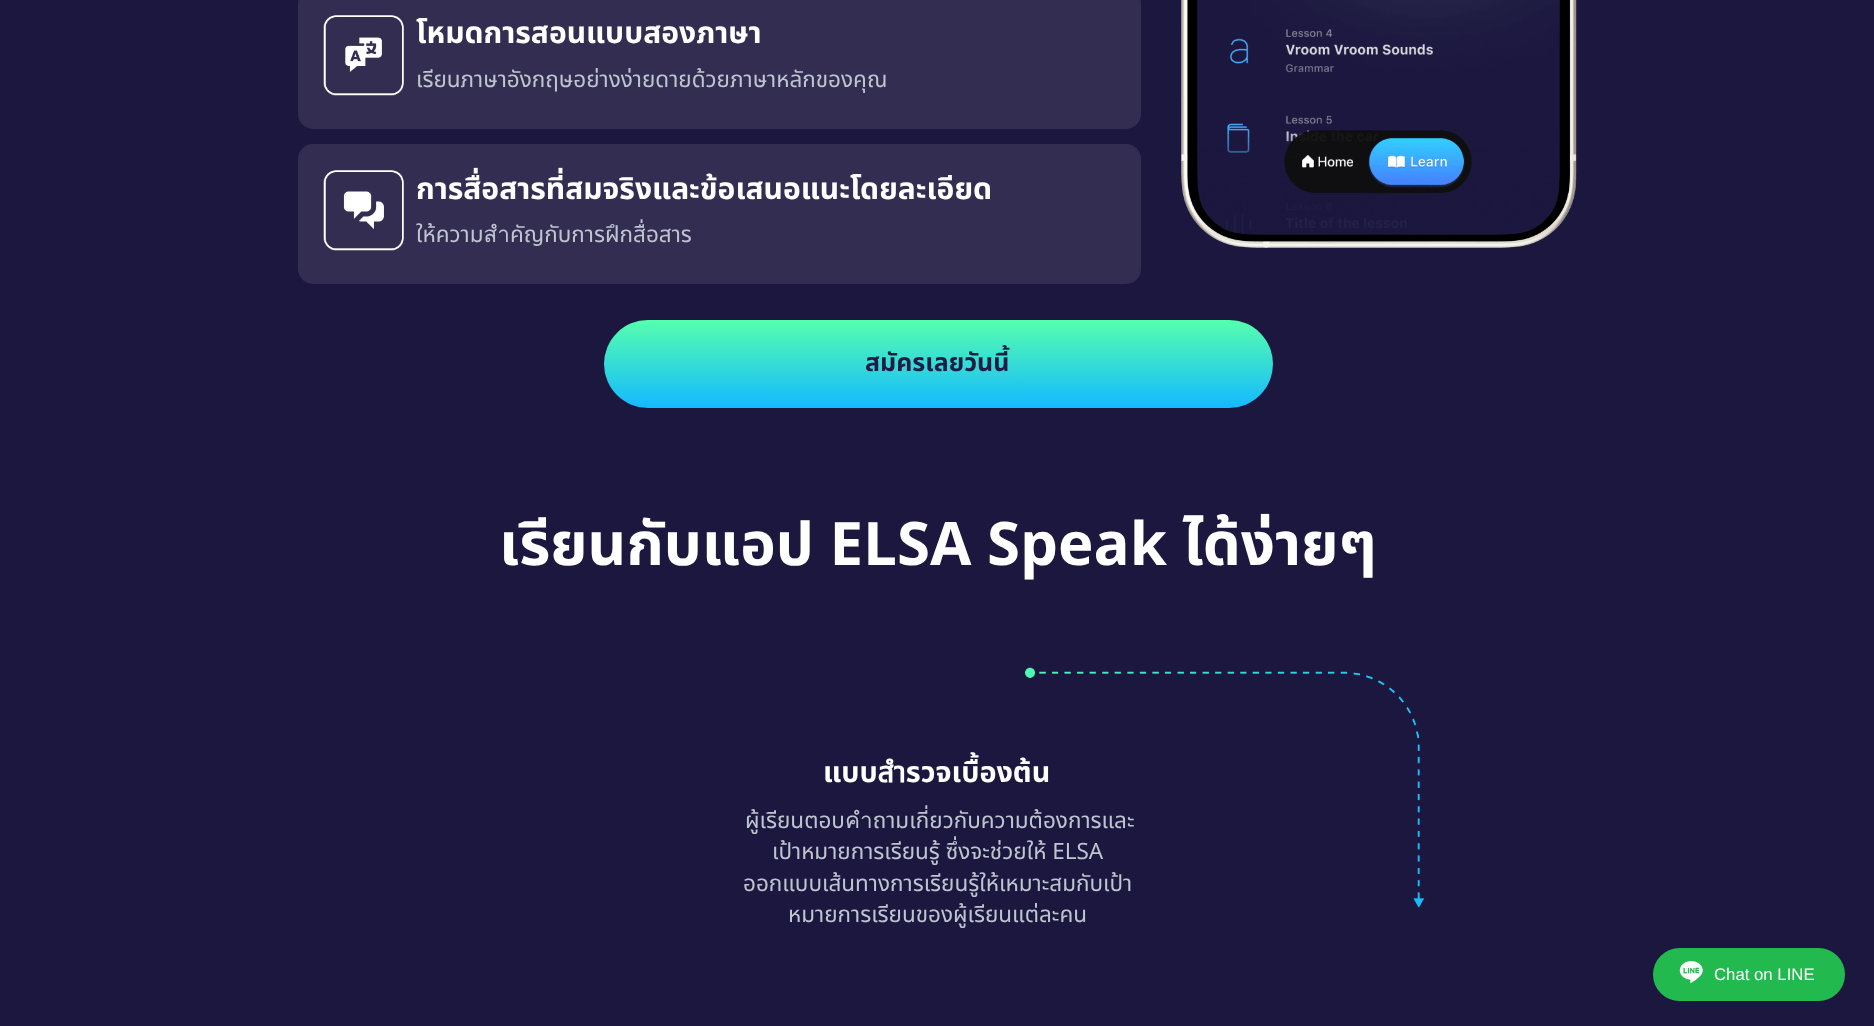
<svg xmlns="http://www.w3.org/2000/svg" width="1874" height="1026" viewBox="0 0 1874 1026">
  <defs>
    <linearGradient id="g1" gradientUnits="userSpaceOnUse" x1="938" y1="320" x2="938" y2="408"><stop offset="0" stop-color="#55ffad"/><stop offset="1" stop-color="#14b9ff"/></linearGradient>
  </defs>
  <rect width="100%" height="100%" fill="#1c173e"/>
  <rect x="298" y="-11" width="843" height="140" rx="15" fill="#332e51"/>
  <rect x="299" y="-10" width="841" height="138" rx="15" fill="#1c173e"/>
  <rect x="299" y="-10" width="841" height="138" rx="15" fill="#ffffff" fill-opacity="0.1"/>
  <image x="323" y="15" width="81" height="81" href="img1.png"/>
  <text x="416" y="43" font-family="Noto Sans Thai" font-size="30" font-weight="bold" fill="#ffffff">โหมดการสอนแบบสองภาษา</text>
  <text x="416" y="87" font-family="Noto Sans Thai" font-size="22.5" fill="#bec4d0">เรียนภาษาอังกฤษอย่างง่ายดายด้วยภาษาหลักของคุณ</text>
  <rect x="298" y="144" width="843" height="140" rx="15" fill="#332e51"/>
  <rect x="299" y="145" width="841" height="138" rx="15" fill="#1c173e"/>
  <rect x="299" y="145" width="841" height="138" rx="15" fill="#ffffff" fill-opacity="0.1"/>
  <image x="323" y="170" width="81" height="81" href="img2.png"/>
  <text x="416" y="199" font-family="Noto Sans Thai" font-size="30" font-weight="bold" fill="#ffffff">การสื่อสารที่สมจริงและข้อเสนอแนะโดยละเอียด</text>
  <text x="416" y="242" font-family="Noto Sans Thai" font-size="22.5" fill="#bec4d0">ให้ความสำคัญกับการฝึกสื่อสาร</text>
  <image x="1181" y="0" width="396" height="248" href="img3.png"/>
  <rect x="604" y="320" width="669" height="88" rx="44" fill="url(#g1)"/>
  <text x="865" y="371" font-family="Noto Sans Thai" font-size="25" font-weight="bold" fill="#1f1d44">สมัครเลยวันนี้</text>
  <text x="499" y="565" font-family="Noto Sans Thai" font-size="60" font-weight="bold" fill="#ffffff">เรียนกับแอป ELSA Speak ได้ง่ายๆ</text>
  <text x="823" y="782" font-family="Noto Sans Thai" font-size="28.75" font-weight="bold" fill="#ffffff">แบบสำรวจเบื้องต้น</text>
  <text x="745" y="828" font-family="Noto Sans Thai" font-size="22.5" fill="#bec4d0">ผู้เรียนตอบคำถามเกี่ยวกับความต้องการและ</text>
  <text x="772" y="859" font-family="Noto Sans Thai" font-size="22.5" fill="#bec4d0">เป้าหมายการเรียนรู้ ซึ่งจะช่วยให้ ELSA</text>
  <text x="743" y="891" font-family="Noto Sans Thai" font-size="22.5" fill="#bec4d0">ออกแบบเส้นทางการเรียนรู้ให้เหมาะสมกับเป้า</text>
  <text x="788" y="922" font-family="Noto Sans Thai" font-size="22.5" fill="#bec4d0">หมายการเรียนของผู้เรียนแต่ละคน</text>
  <image x="1025" y="667" width="400" height="241" href="img4.png"/>
  <rect x="1653" y="948" width="192" height="53" rx="26.5" fill="#22ba4f"/>
  <image x="1679" y="961" width="24" height="22" href="img5.png"/>
  <text x="1714" y="980" font-family="Liberation Sans" font-size="16.75" fill="#ffffff">Chat on LINE</text>
</svg>
